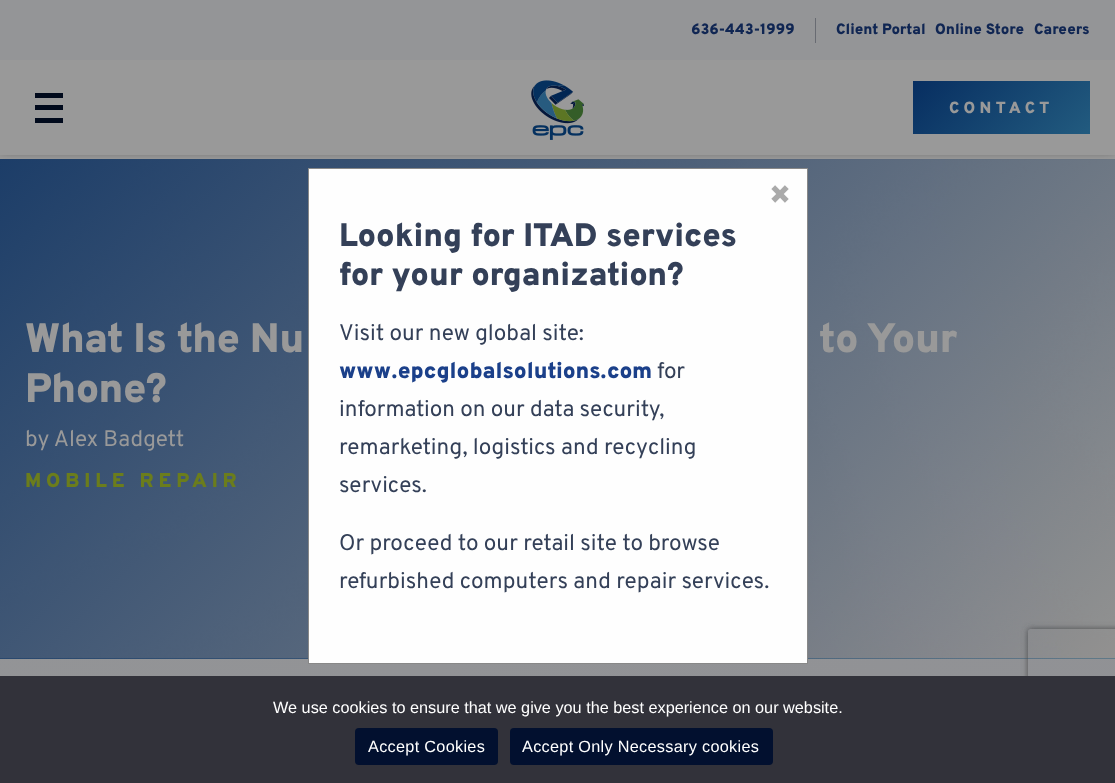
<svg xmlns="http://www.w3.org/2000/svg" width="1115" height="783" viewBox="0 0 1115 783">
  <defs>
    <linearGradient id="g1" gradientUnits="userSpaceOnUse" x1="154" y1="5" x2="961" y2="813"><stop offset="0" stop-color="#072e61"/><stop offset="1" stop-color="#225b7f"/></linearGradient>
    <linearGradient id="g2" gradientUnits="userSpaceOnUse" x1="-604" y1="763" x2="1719" y2="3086"><stop offset="0" stop-color="#949597"/><stop offset="0.5" stop-color="#8f9094"/><stop offset="1" stop-color="#949597"/></linearGradient>
    <clipPath id="clip1"><path d="M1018 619H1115V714H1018ZM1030.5 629H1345.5C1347 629 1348 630 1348 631.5V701.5C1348 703 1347 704 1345.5 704H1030.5C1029 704 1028 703 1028 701.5V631.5C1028 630 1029 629 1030.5 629Z" clip-rule="evenodd"/></clipPath>
    <filter id="blur1" x="-50%" y="-200%" width="200%" height="500%"><feGaussianBlur stdDeviation="3"/></filter>
    <linearGradient id="g3" gradientUnits="userSpaceOnUse" x1="154" y1="5" x2="961" y2="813"><stop offset="0" stop-color="#072e61" stop-opacity="0.85"/><stop offset="1" stop-color="#072e61" stop-opacity="0"/></linearGradient>
    <clipPath id="clip2"><rect x="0" y="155" width="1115" height="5"/></clipPath>
    <filter id="blur2" x="-50%" y="-200%" width="200%" height="500%"><feGaussianBlur stdDeviation="6"/></filter>
    <linearGradient id="g4" gradientUnits="userSpaceOnUse" x1="944" y1="50" x2="1059" y2="165"><stop offset="0" stop-color="#072e61"/><stop offset="1" stop-color="#225b7f"/></linearGradient>
  </defs>
  <rect width="100%" height="100%" fill="#999999"/>
  <rect x="0" y="658" width="1115" height="1" fill="url(#g1)"/>
  <image x="0" y="159" width="1115" height="500" href="img2.png"/>
  <rect x="0" y="659" width="1115" height="17" fill="url(#g2)"/>
  <g clip-path="url(#clip1)">
    <rect x="1028" y="629" width="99" height="75" rx="2.5" fill="#4d4d4d" filter="url(#blur1)"/>
  </g>
  <rect x="0" y="159" width="1115" height="500" fill="url(#g3)"/>
  <g clip-path="url(#clip2)">
    <rect x="0" y="-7" width="1115" height="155" fill="#141414" filter="url(#blur2)"/>
  </g>
  <rect x="0" y="0" width="1115" height="60" fill="#949597"/>
  <text x="691" y="34" font-family="Overpass" font-size="15" font-weight="900" fill="#102653">636-443-1999</text>
  <rect x="815" y="18" width="1" height="25" fill="#686b72"/>
  <text x="836" y="34" font-family="Overpass" font-size="15" font-weight="900" fill="#102653">Client Portal</text>
  <text x="935" y="34" font-family="Overpass" font-size="15" font-weight="900" fill="#102653">Online Store</text>
  <text x="1034" y="34" font-family="Overpass" font-size="15" font-weight="900" fill="#102653">Careers</text>
  <rect x="35" y="93" width="28" height="5" fill="#010a1c"/>
  <rect x="35" y="105" width="28" height="5" fill="#010a1c"/>
  <rect x="35" y="118" width="28" height="5" fill="#010a1c"/>
  <image x="531" y="80" width="53" height="60" href="img1.png"/>
  <rect x="913" y="81" width="177" height="53" fill="url(#g4)"/>
  <text x="949" y="113" font-family="Overpass" font-size="16.25" font-weight="900" letter-spacing="4.5" fill="#999999">CONTACT</text>
  <rect x="308.5" y="168.5" width="499" height="495" fill="#fefefe" stroke="#888888"/>
  <text x="769" y="206" font-family="Overpass" font-size="35" font-weight="900" fill="#aaaaaa">×</text>
  <text x="339" y="246" font-family="Overpass" font-size="32.5" font-weight="900" fill="#344058">Looking for ITAD services</text>
  <text x="339" y="285" font-family="Overpass" font-size="32.5" font-weight="900" fill="#344058">for your organization?</text>
  <text x="339" y="340" font-family="Overpass" font-size="22.5" fill="#344058">Visit our new global site:</text>
  <text x="339" y="378" font-family="Overpass" font-size="22.5" font-weight="900" fill="#1b408a">www.epcglobalsolutions.com</text>
  <text x="657" y="378" font-family="Overpass" font-size="22.5" fill="#344058">for</text>
  <text x="339" y="416" font-family="Overpass" font-size="22.5" fill="#344058">information on our data security,</text>
  <text x="339" y="454" font-family="Overpass" font-size="22.5" fill="#344058">remarketing, logistics and recycling</text>
  <text x="339" y="492" font-family="Overpass" font-size="22.5" fill="#344058">services.</text>
  <text x="339" y="550" font-family="Overpass" font-size="22.5" fill="#344058">Or proceed to our retail site to browse</text>
  <text x="339" y="588" font-family="Overpass" font-size="22.5" fill="#344058">refurbished computers and repair services.</text>
  <text x="25" y="352" font-family="Overpass" font-size="41.25" font-weight="900" letter-spacing="-0.5" fill="#999999">What Is the Nu</text>
  <text x="819" y="352" font-family="Overpass" font-size="41.25" font-weight="900" letter-spacing="-0.5" fill="#999999">to Your</text>
  <text x="25" y="402" font-family="Overpass" font-size="41.25" font-weight="900" letter-spacing="-0.5" fill="#999999">Phone?</text>
  <text x="25" y="446" font-family="Overpass" font-size="22.5" fill="#999999">by Alex Badgett</text>
  <text x="25" y="487" font-family="Overpass" font-size="20" font-weight="900" letter-spacing="4.9" fill="#6b7d1c">MOBILE REPAIR</text>
  <rect x="0" y="676" width="1115" height="107" fill="#32323a"/>
  <text x="273" y="713" font-family="Liberation Sans" font-size="16.25" fill="#ffffff">We use cookies to ensure that we give you the best experience on our website.</text>
  <rect x="355" y="728" width="143" height="37" rx="4" fill="#02102f"/>
  <text x="368" y="752" font-family="Liberation Sans" font-size="16.25" letter-spacing="0.3" fill="#ffffff">Accept Cookies</text>
  <rect x="510" y="728" width="263" height="37" rx="4" fill="#02102f"/>
  <text x="522" y="752" font-family="Liberation Sans" font-size="16.25" letter-spacing="0.3" fill="#ffffff">Accept Only Necessary cookies</text>
</svg>
